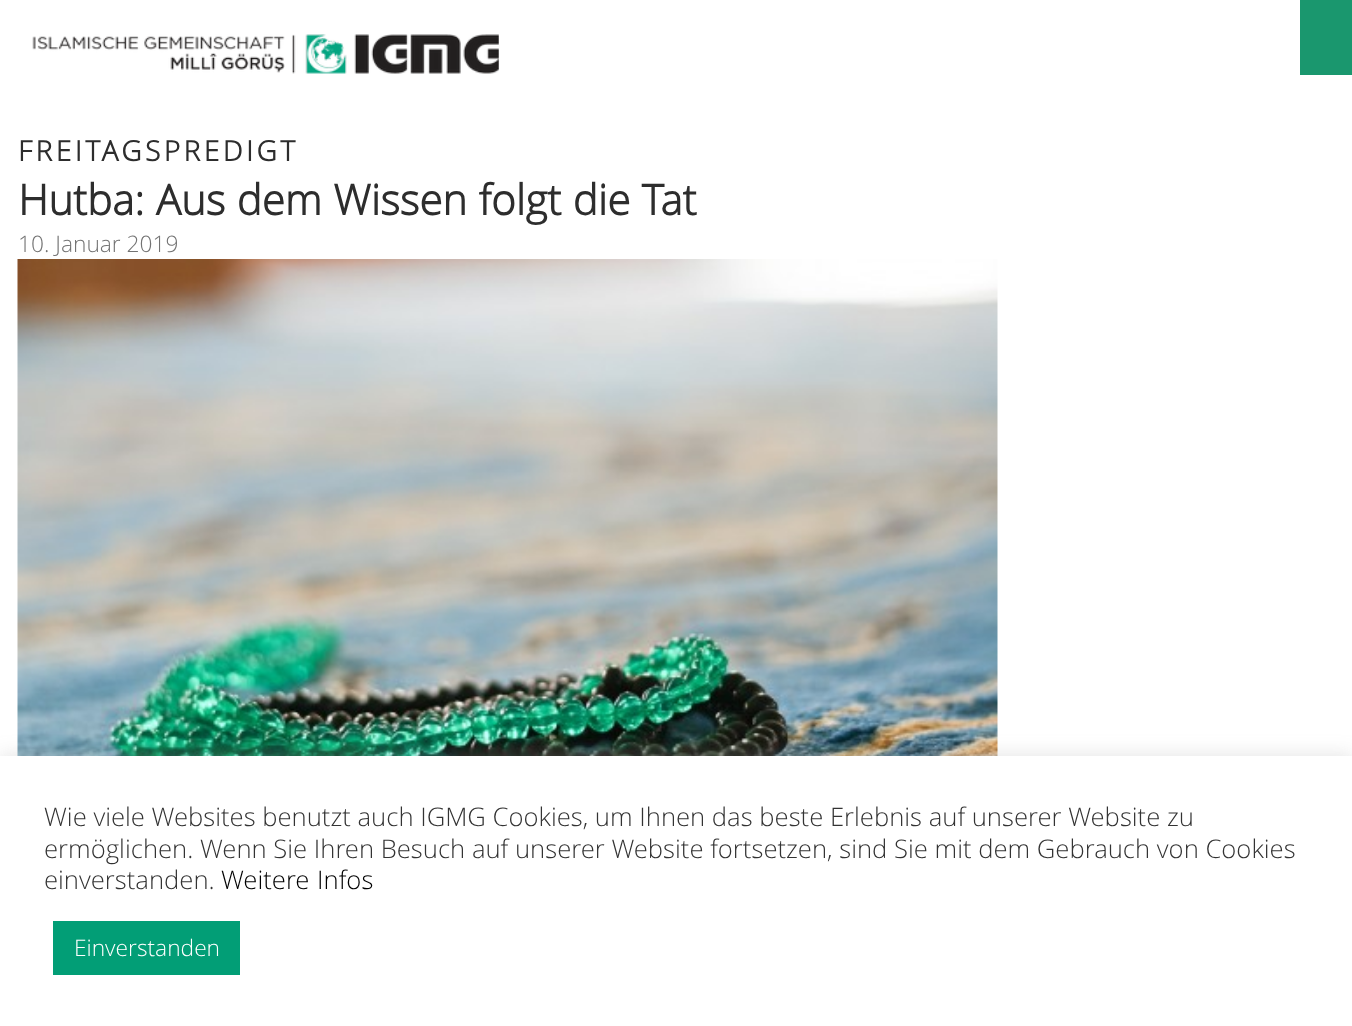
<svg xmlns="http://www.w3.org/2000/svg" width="1352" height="1026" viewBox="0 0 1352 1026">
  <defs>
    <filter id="blur1" x="-50%" y="-200%" width="200%" height="500%"><feGaussianBlur stdDeviation="9"/></filter>
  </defs>
  <rect width="100%" height="100%" fill="#ffffff"/>
  <image x="32" y="34" width="467" height="40" href="img1.png"/>
  <rect x="1300" y="0" width="52" height="75" fill="#1a976e"/>
  <text x="18" y="161" font-family="Open Sans" font-size="28" font-weight="bold" letter-spacing="3.5" fill="#2d2d2d">FREITAGSPREDIGT</text>
  <text x="18" y="215" word-spacing="0.5" font-family="Open Sans" font-size="42" font-weight="bold" fill="#2d2d2d">Hutba: Aus dem Wissen folgt die Tat</text>
  <text x="18" y="252" font-family="Open Sans" font-size="22.75" font-weight="300" fill="#737373">10. Januar 2019</text>
  <image x="17" y="259" width="981" height="497" href="img2.png"/>
  <rect x="0" y="754" width="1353" height="272" fill="#acabab" fill-opacity="0.3" filter="url(#blur1)"/>
  <rect x="0" y="756" width="1352" height="270" fill="#ffffff"/>
  <text x="44" y="826" font-family="Open Sans" font-size="25.65" font-weight="300" fill="#333333">Wie viele Websites benutzt auch IGMG Cookies, um Ihnen das beste Erlebnis auf unserer Website zu</text>
  <text x="44" y="858" font-family="Open Sans" font-size="25.65" font-weight="300" fill="#333333">ermöglichen. Wenn Sie Ihren Besuch auf unserer Website fortsetzen, sind Sie mit dem Gebrauch von Cookies</text>
  <text x="44" y="889" font-family="Open Sans" font-size="25.65" font-weight="300" fill="#333333">einverstanden.</text>
  <text x="221" y="889" word-spacing="1" font-family="Open Sans" font-size="25.65" font-weight="300" fill="#000000">Weitere Infos</text>
  <rect x="53" y="921" width="187" height="54" fill="#029e76"/>
  <text x="74" y="956" font-family="Open Sans" font-size="22.75" font-weight="300" fill="#ffffff">Einverstanden</text>
</svg>
